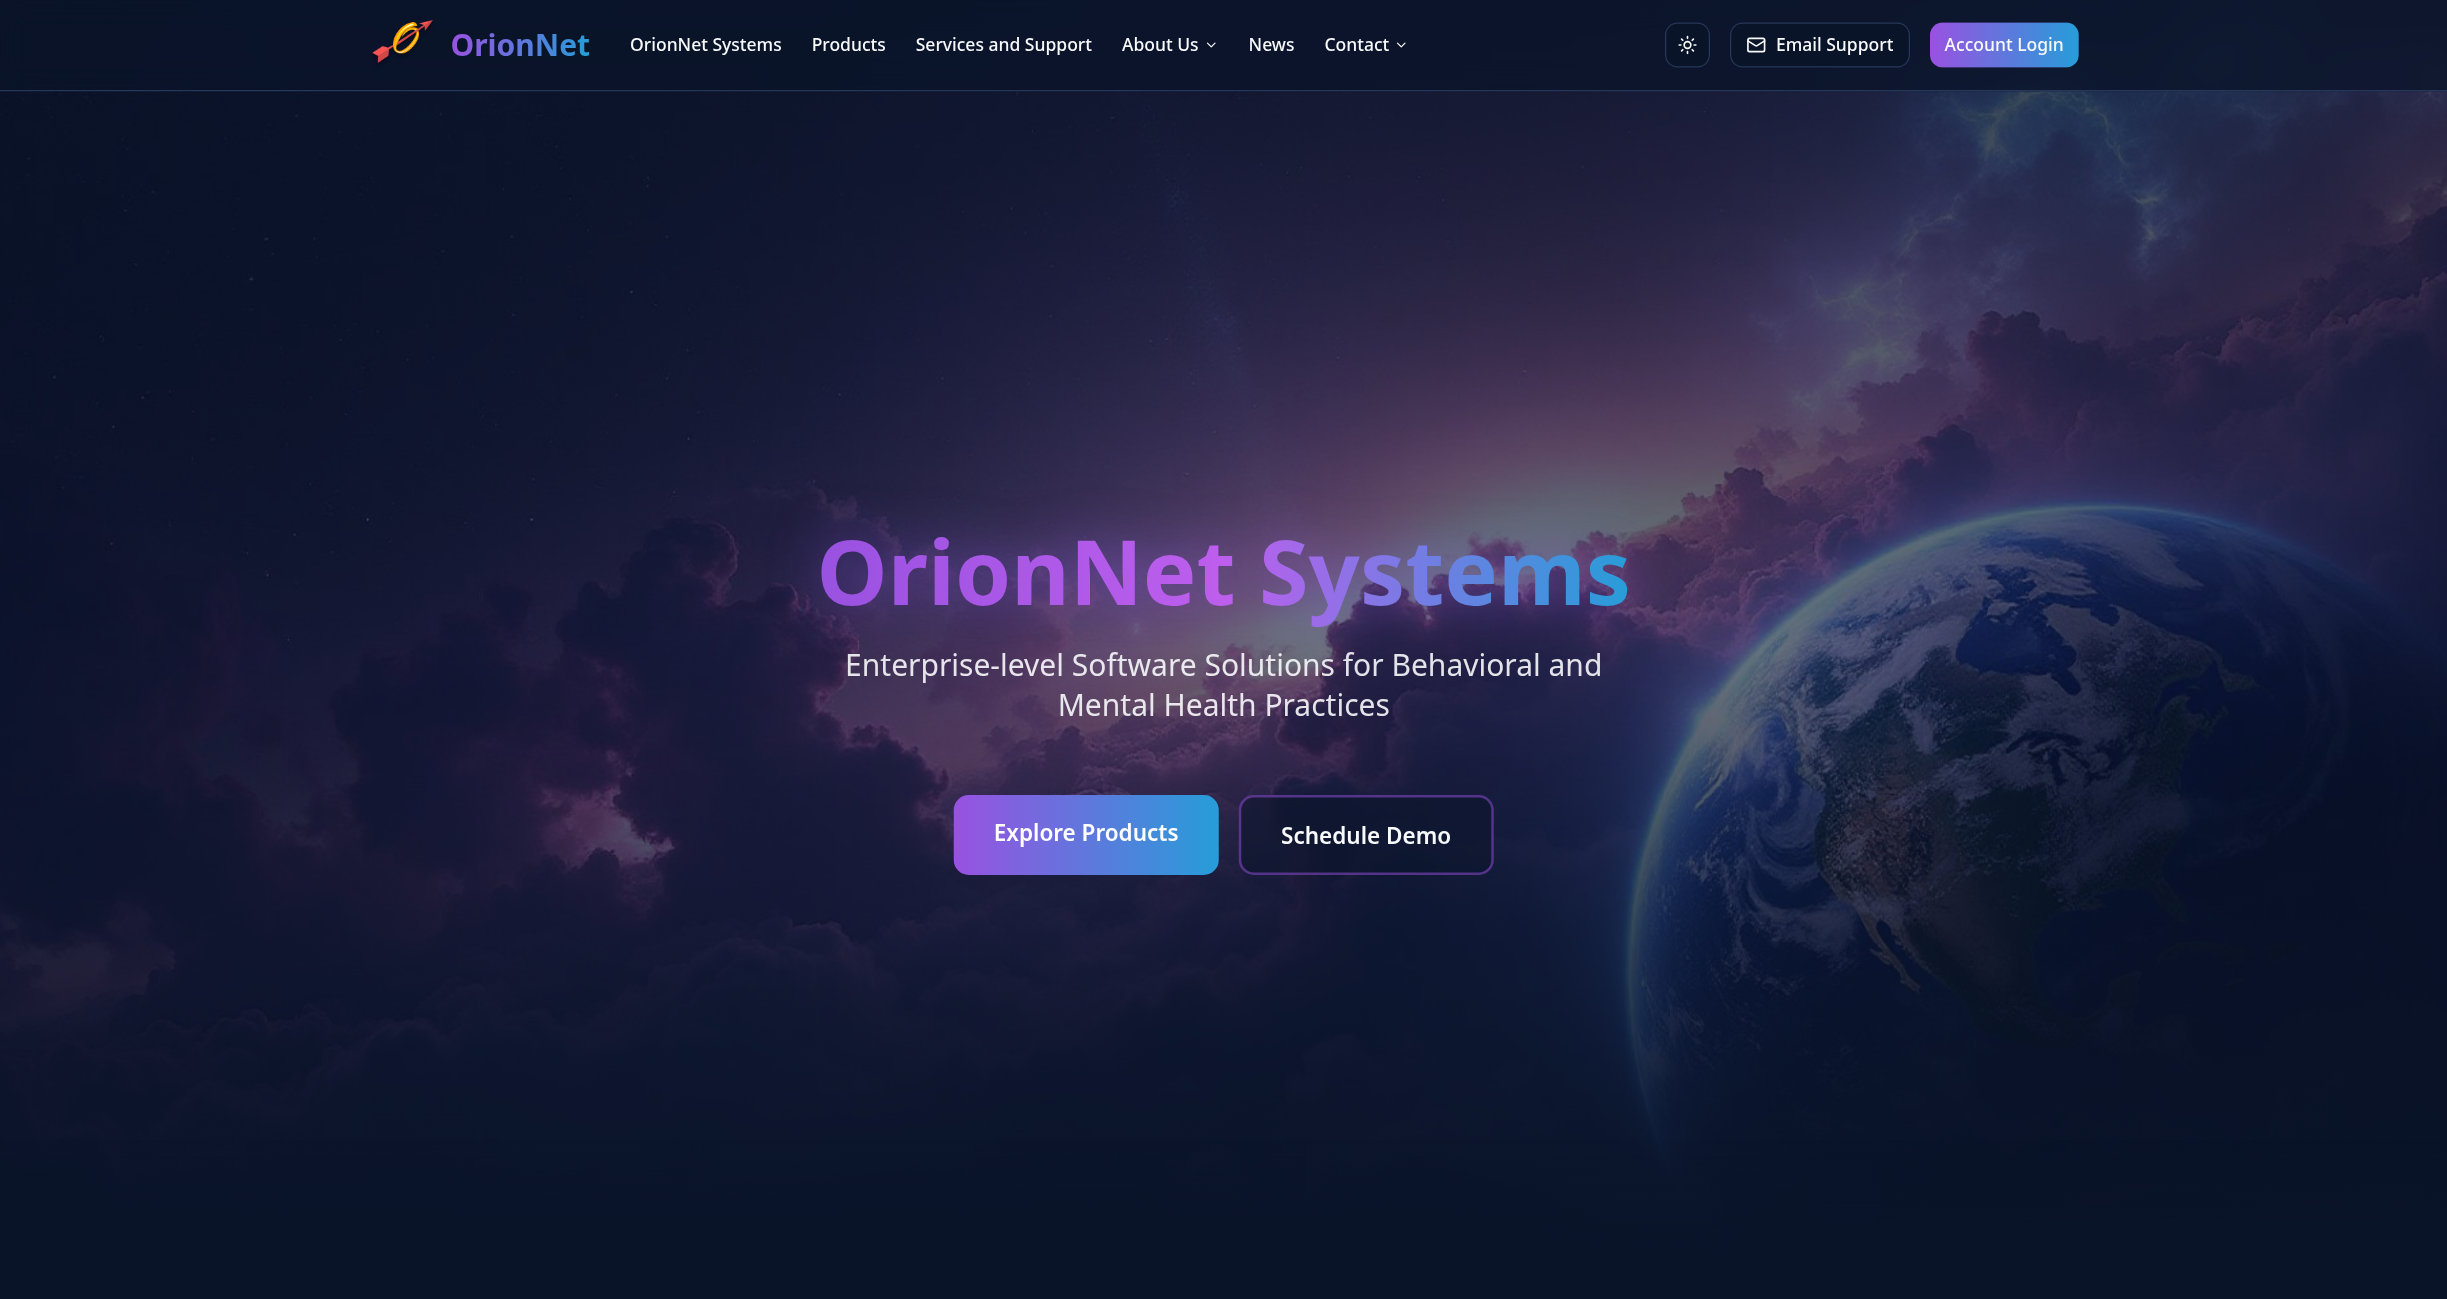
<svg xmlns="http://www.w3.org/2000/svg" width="2447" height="1299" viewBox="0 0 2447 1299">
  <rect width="100%" height="100%" fill="#ffffff"/>
  <image x="0" y="0" width="2447" height="1299" href="img1.png"/>
</svg>
